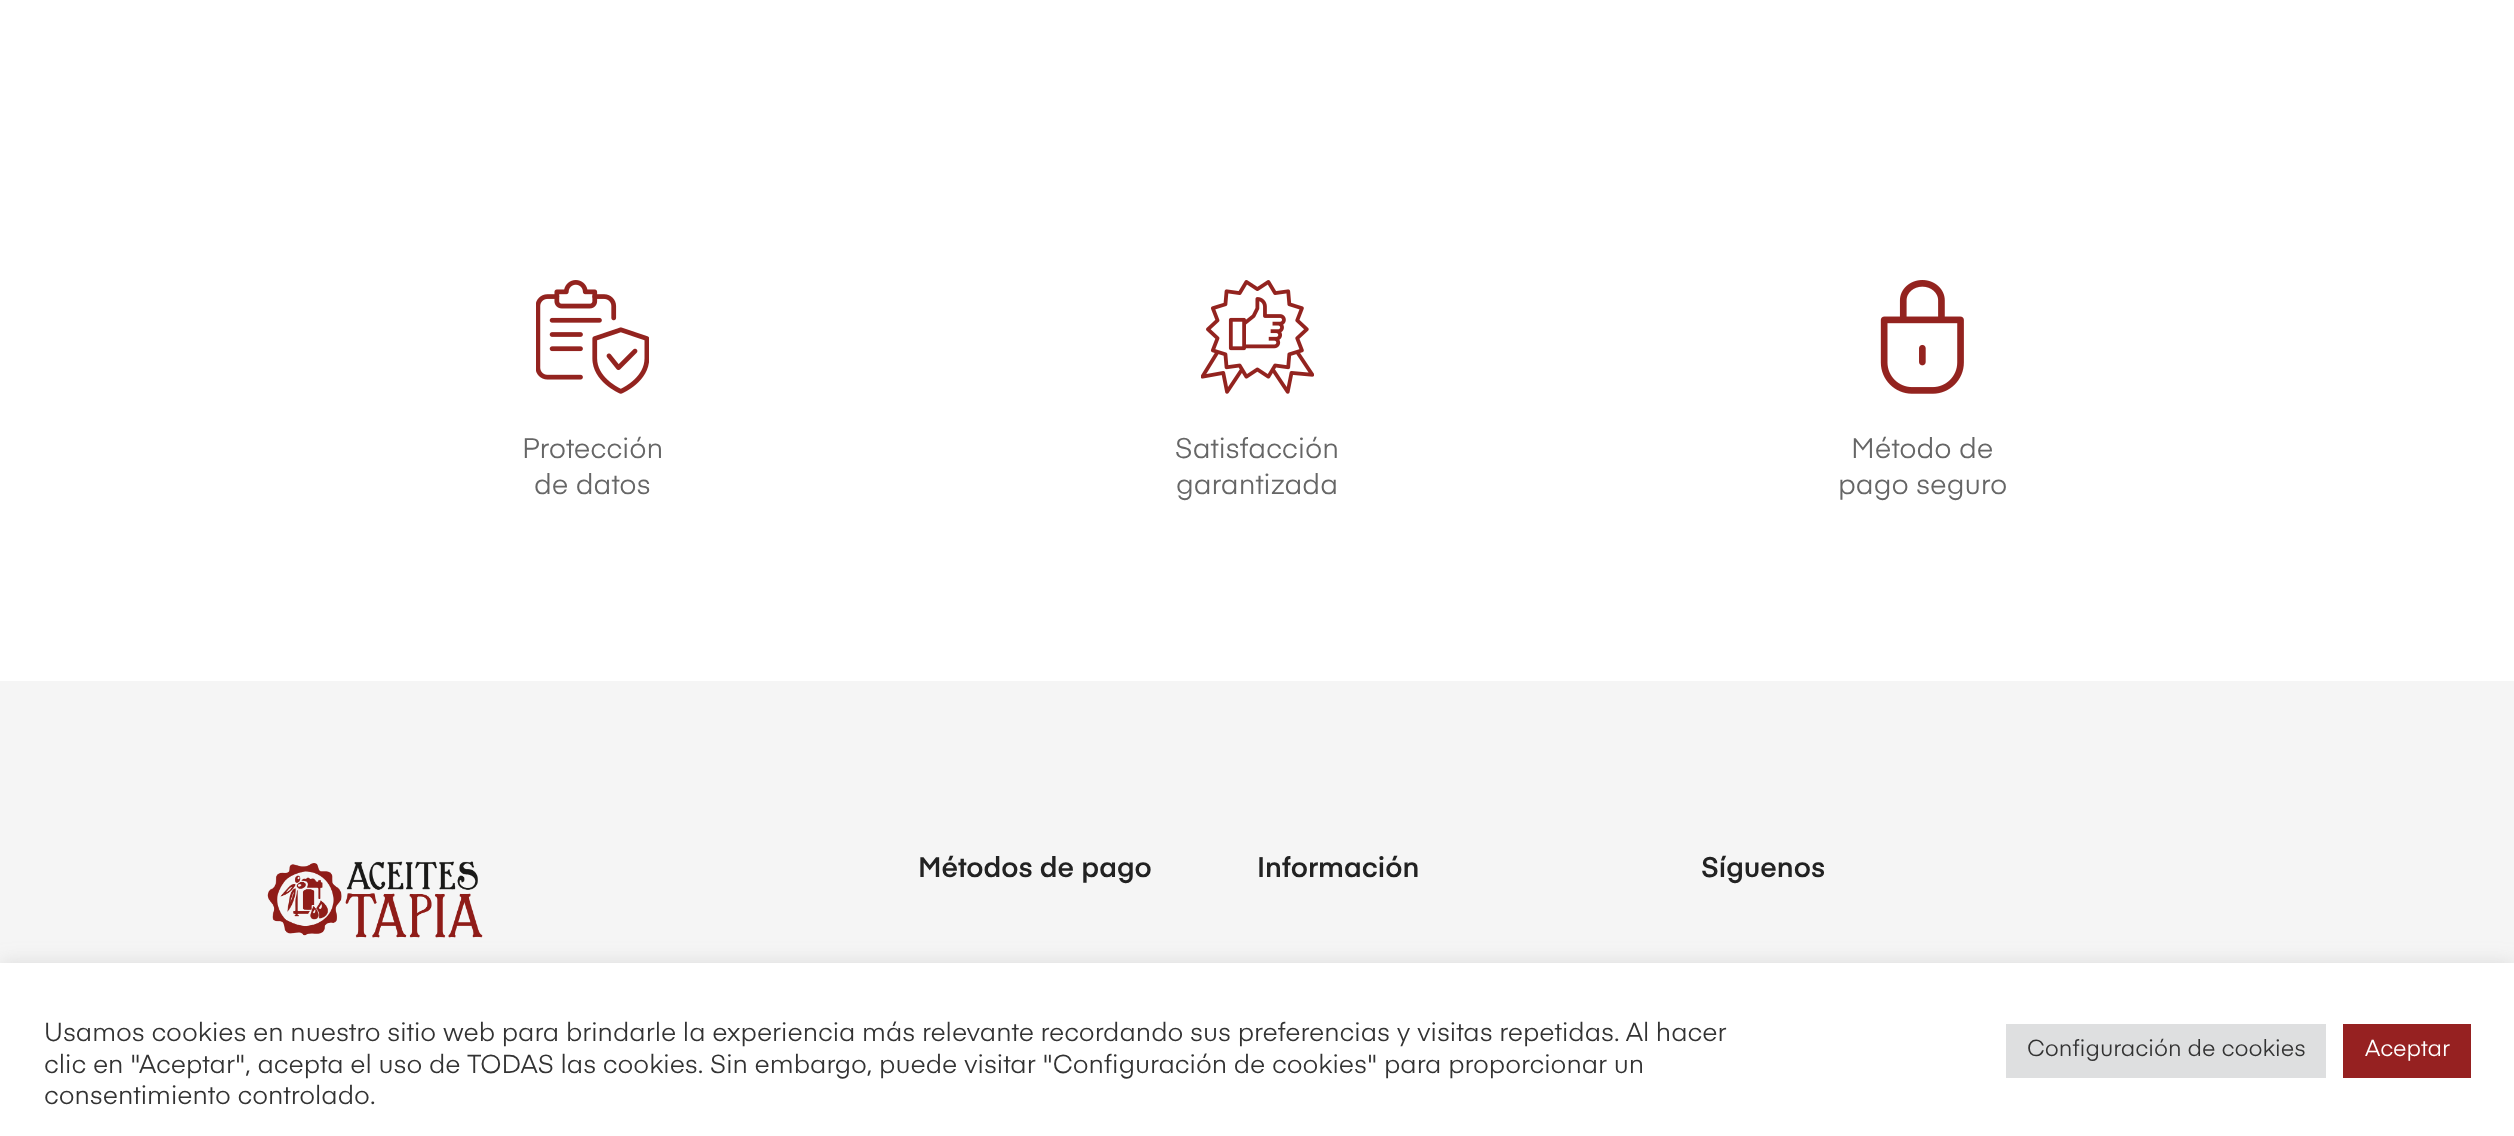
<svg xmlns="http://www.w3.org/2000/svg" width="2514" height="1136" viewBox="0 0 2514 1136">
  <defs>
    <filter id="blur1" x="-50%" y="-200%" width="200%" height="500%"><feGaussianBlur stdDeviation="9"/></filter>
  </defs>
  <rect width="100%" height="100%" fill="#ffffff"/>
  <image x="536" y="280" width="113" height="114" href="img1.png"/>
  <text x="522" y="458" font-family="'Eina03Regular'" font-size="28" fill="#666666">Protección</text>
  <text x="534" y="494" font-family="'Eina03Regular'" font-size="28" fill="#666666">de datos</text>
  <image x="1201" y="280" width="113" height="114" href="img2.png"/>
  <text x="1175" y="458" font-family="'Eina03Regular'" font-size="28" fill="#666666">Satisfacción</text>
  <text x="1176" y="494" font-family="'Eina03Regular'" font-size="28" fill="#666666">garantizada</text>
  <image x="1880" y="280" width="84" height="114" href="img3.png"/>
  <text x="1851" y="458" font-family="'Eina03Regular'" font-size="28" fill="#666666">Método de</text>
  <text x="1838" y="494" font-family="'Eina03Regular'" font-size="28" fill="#666666">pago seguro</text>
  <rect x="0" y="681" width="2514" height="282" fill="#f5f5f5"/>
  <image x="267" y="861" width="216" height="77" href="img4.png"/>
  <text x="918" y="877" font-family="'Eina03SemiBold'" font-size="28" font-weight="600" fill="#222222">Métodos de pago</text>
  <text x="1257" y="877" font-family="'Eina03SemiBold'" font-size="28" font-weight="600" fill="#222222">Información</text>
  <text x="1701" y="877" font-family="'Eina03SemiBold'" font-size="28" font-weight="600" fill="#222222">Síguenos</text>
  <rect x="0" y="961" width="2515" height="175" fill="#acabab" fill-opacity="0.3" filter="url(#blur1)"/>
  <rect x="0" y="963" width="2514" height="173" fill="#ffffff"/>
  <text x="44" y="1041" font-family="'Eina03Regular'" font-size="25.67" fill="#333333">Usamos cookies en nuestro sitio web para brindarle la experiencia más relevante recordando sus preferencias y visitas repetidas. Al hacer</text>
  <text x="44" y="1073" font-family="'Eina03Regular'" font-size="25.67" fill="#333333">clic en "Aceptar", acepta el uso de TODAS las cookies. Sin embargo, puede visitar "Configuración de cookies" para proporcionar un</text>
  <text x="44" y="1104" font-family="'Eina03Regular'" font-size="25.67" fill="#333333">consentimiento controlado.</text>
  <rect x="2006" y="1024" width="320" height="54" fill="#dedfe0"/>
  <text x="2027" y="1056" font-family="'Eina03Regular'" font-size="22.75" fill="#333333">Configuración de cookies</text>
  <rect x="2343" y="1024" width="128" height="54" fill="#962121"/>
  <text x="2365" y="1056" font-family="'Eina03Regular'" font-size="22.75" fill="#ffffff">Aceptar</text>
</svg>
